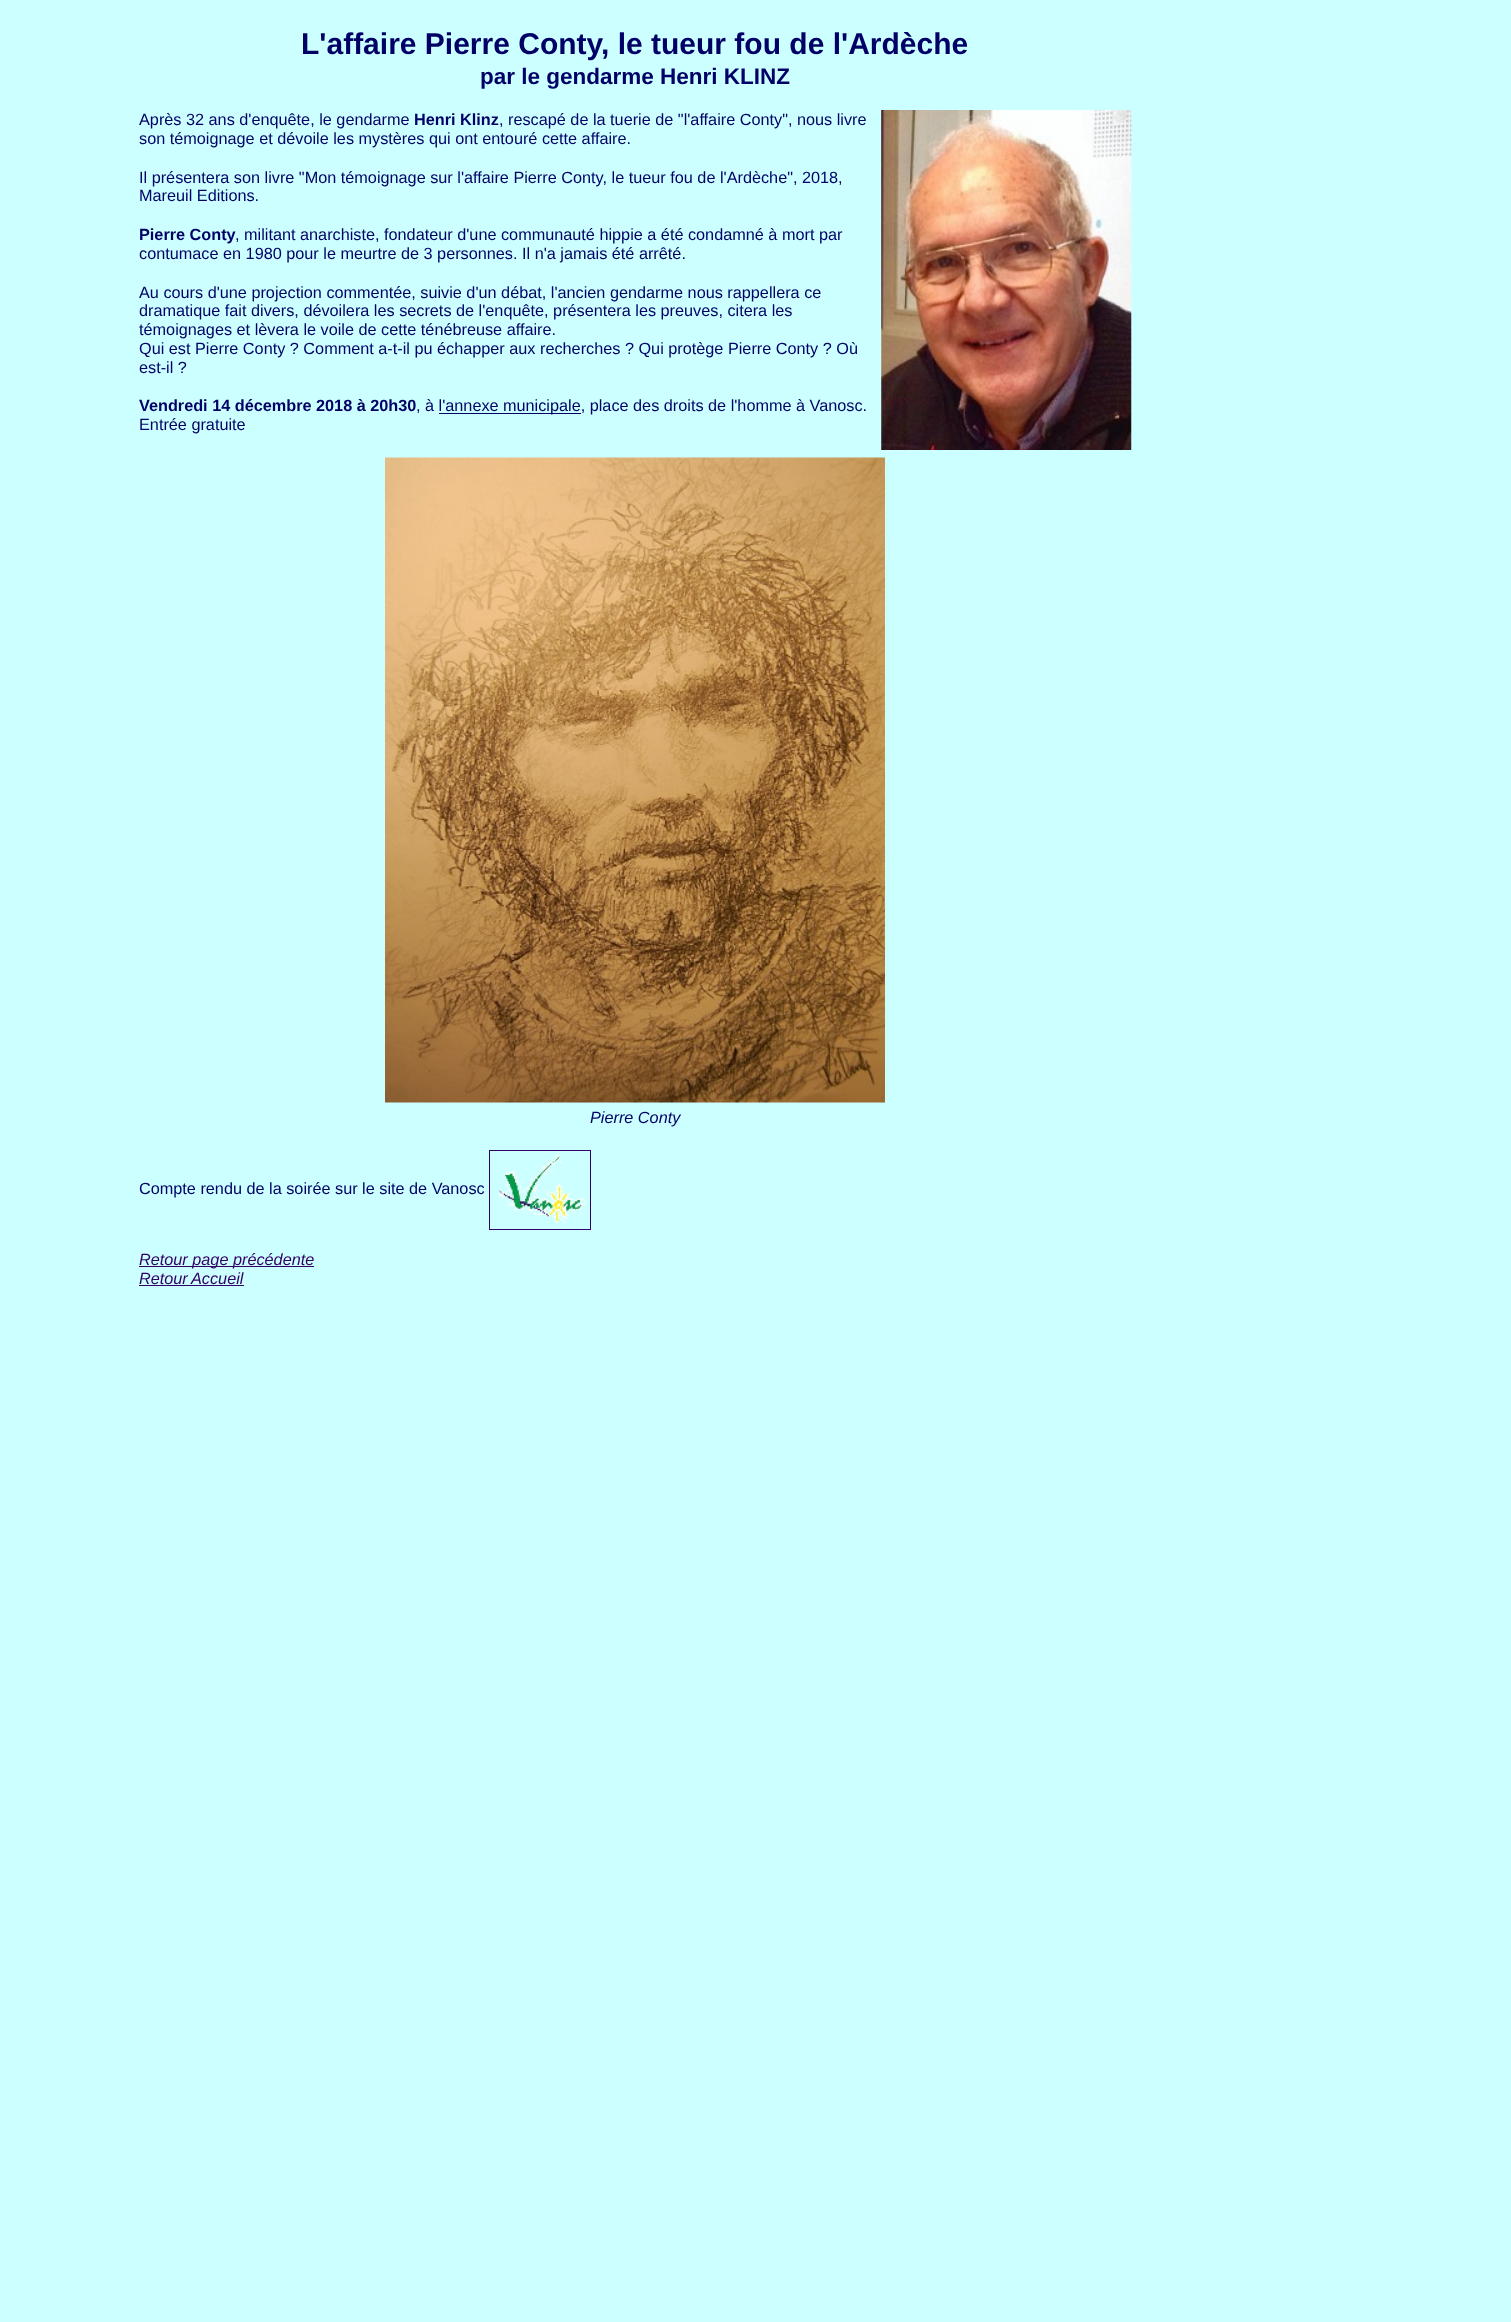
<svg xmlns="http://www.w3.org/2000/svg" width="1511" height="2322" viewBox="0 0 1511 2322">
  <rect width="100%" height="100%" fill="#ccffff"/>
  <text x="301" y="54" font-family="Liberation Sans" font-size="30" font-weight="bold" fill="#000066">L'affaire Pierre Conty, le tueur fou de l'Ardèche</text>
  <text x="480" y="84" font-family="Liberation Sans" font-size="22.5" font-weight="bold" fill="#000066">par le gendarme Henri KLINZ</text>
  <text x="139" y="125" font-family="Liberation Sans" font-size="16.25" fill="#000066">Après 32 ans d'enquête, le gendarme</text>
  <text x="414" y="125" font-family="Liberation Sans" font-size="16.25" font-weight="bold" fill="#000066">Henri Klinz</text>
  <text x="499" y="125" font-family="Liberation Sans" font-size="16.25" fill="#000066">, rescapé de la tuerie de "l'affaire Conty", nous livre</text>
  <image x="881" y="110" width="251" height="340" href="img1.png"/>
  <text x="139" y="144" font-family="Liberation Sans" font-size="16.25" fill="#000066">son témoignage et dévoile les mystères qui ont entouré cette affaire.</text>
  <text x="139" y="183" font-family="Liberation Sans" font-size="16.25" fill="#000066">Il présentera son livre "Mon témoignage sur l'affaire Pierre Conty, le tueur fou de l'Ardèche", 2018,</text>
  <text x="139" y="201" font-family="Liberation Sans" font-size="16.25" fill="#000066">Mareuil Editions.</text>
  <text x="139" y="240" font-family="Liberation Sans" font-size="16.25" font-weight="bold" fill="#000066">Pierre Conty</text>
  <text x="235" y="240" font-family="Liberation Sans" font-size="16.25" fill="#000066">, militant anarchiste, fondateur d'une communauté hippie a été condamné à mort par</text>
  <text x="139" y="259" font-family="Liberation Sans" font-size="16.25" fill="#000066">contumace en 1980 pour le meurtre de 3 personnes. Il n'a jamais été arrêté.</text>
  <text x="139" y="298" font-family="Liberation Sans" font-size="16.25" fill="#000066">Au cours d'une projection commentée, suivie d'un débat, l'ancien gendarme nous rappellera ce</text>
  <text x="139" y="316" font-family="Liberation Sans" font-size="16.25" fill="#000066">dramatique fait divers, dévoilera les secrets de l'enquête, présentera les preuves, citera les</text>
  <text x="139" y="335" font-family="Liberation Sans" font-size="16.25" fill="#000066">témoignages et lèvera le voile de cette ténébreuse affaire.</text>
  <text x="139" y="354" font-family="Liberation Sans" font-size="16.25" fill="#000066">Qui est Pierre Conty ? Comment a-t-il pu échapper aux recherches ? Qui protège Pierre Conty ? Où</text>
  <text x="139" y="373" font-family="Liberation Sans" font-size="16.25" fill="#000066">est-il ?</text>
  <text x="139" y="411" font-family="Liberation Sans" font-size="16.25" font-weight="bold" fill="#000066">Vendredi 14 décembre 2018 à 20h30</text>
  <text x="416" y="411" font-family="Liberation Sans" font-size="16.25" fill="#000066">, à l'annexe</text>
  <rect x="439" y="413" width="142" height="1" fill="#000066"/>
  <text x="503" y="411" font-family="Liberation Sans" font-size="16.25" fill="#000066">municipale, place des droits de l'homme à Vanosc.</text>
  <text x="139" y="430" font-family="Liberation Sans" font-size="16.25" fill="#000066">Entrée gratuite</text>
  <image x="385" y="457" width="500" height="646" href="img2.png"/>
  <text x="590" y="1123" font-family="Liberation Sans" font-size="16.25" font-style="italic" fill="#000066">Pierre Conty</text>
  <text x="139" y="1194" font-family="Liberation Sans" font-size="16.25" fill="#000066">Compte rendu de la soirée sur le site de Vanosc</text>
  <rect x="489.5" y="1150.5" width="101" height="79" fill="none" stroke="#330066"/>
  <image x="498" y="1152" width="89" height="71" href="img3.png"/>
  <rect x="139" y="1266" width="175" height="1" fill="#330066"/>
  <text x="139" y="1265" font-family="Liberation Sans" font-size="16.25" font-style="italic" fill="#330066">Retour page précédente</text>
  <text x="139" y="1284" font-family="Liberation Sans" font-size="16.25" font-style="italic" fill="#330066">Retour</text>
  <rect x="139" y="1285" width="105" height="1" fill="#330066"/>
  <text x="191" y="1284" font-family="Liberation Sans" font-size="16.25" font-style="italic" fill="#330066">Accueil</text>
</svg>
